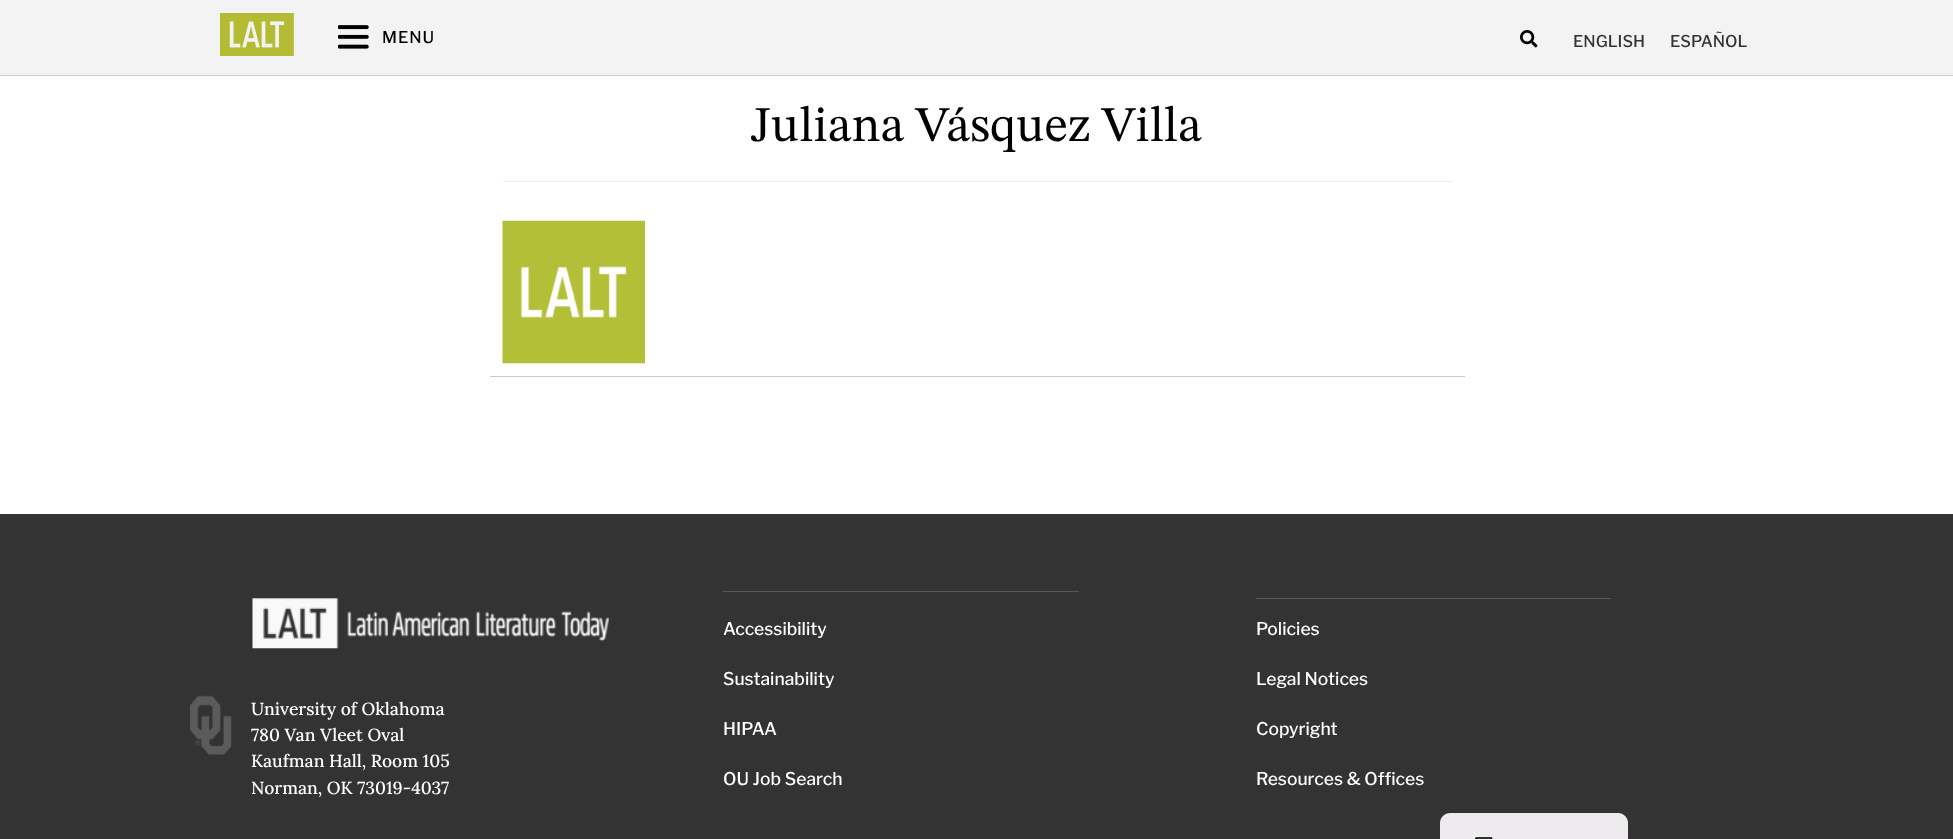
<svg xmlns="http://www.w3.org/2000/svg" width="1953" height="839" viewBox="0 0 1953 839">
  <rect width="100%" height="100%" fill="#ffffff"/>
  <rect x="0" y="0" width="1953" height="75" fill="#f3f3f3"/>
  <rect x="0" y="75" width="1953" height="1" fill="#cecacf"/>
  <image x="220" y="13" width="74" height="43" href="img1.png"/>
  <image x="338" y="25" width="31" height="24" href="img2.png"/>
  <text x="382" y="43" font-family="Libre Franklin" font-size="16.25" font-weight="500" letter-spacing="1" fill="#000000">MENU</text>
  <image x="1520" y="30" width="18" height="18" href="img3.png"/>
  <text x="1573" y="47" font-family="Libre Franklin" font-size="16.25" font-weight="500" fill="#333333">ENGLISH</text>
  <text x="1670" y="47" font-family="Libre Franklin" font-size="16.25" font-weight="500" fill="#333333">ESPAÑOL</text>
  <text x="751" y="141" font-family="STIX Two Text" font-size="50" fill="#000000">Juliana Vásquez Villa</text>
  <rect x="503" y="181" width="950" height="1" fill="#edebed"/>
  <image x="502" y="220" width="143" height="144" href="img4.png"/>
  <rect x="490" y="376" width="975" height="1" fill="#cecacf"/>
  <rect x="0" y="514" width="1953" height="325" fill="#333333"/>
  <image x="252" y="598" width="357" height="51" href="img5.png"/>
  <image x="190" y="695" width="42" height="60" href="img6.png"/>
  <text x="251" y="715" font-family="Lora" font-size="17.5" font-weight="500" fill="#ffffff">University of Oklahoma</text>
  <text x="251" y="741" font-family="Lora" font-size="17.5" font-weight="500" fill="#ffffff">780 Van Vleet Oval</text>
  <text x="251" y="767" font-family="Lora" font-size="17.5" font-weight="500" fill="#ffffff">Kaufman Hall, Room 105</text>
  <text x="251" y="794" font-family="Lora" font-size="17.5" font-weight="500" fill="#ffffff">Norman, OK 73019-4037</text>
  <rect x="723" y="591" width="356" height="1" fill="#575757"/>
  <text x="723" y="635" font-family="Libre Franklin" font-size="17.5" font-weight="500" fill="#ffffff">Accessibility</text>
  <text x="723" y="685" font-family="Libre Franklin" font-size="17.5" font-weight="500" fill="#ffffff">Sustainability</text>
  <text x="723" y="735" font-family="Libre Franklin" font-size="17.5" font-weight="500" fill="#ffffff">HIPAA</text>
  <text x="723" y="785" font-family="Libre Franklin" font-size="17.5" font-weight="500" fill="#ffffff">OU Job Search</text>
  <rect x="1256" y="598" width="355" height="1" fill="#575757"/>
  <text x="1256" y="635" font-family="Libre Franklin" font-size="17.5" font-weight="500" fill="#ffffff">Policies</text>
  <text x="1256" y="685" font-family="Libre Franklin" font-size="17.5" font-weight="500" fill="#ffffff">Legal Notices</text>
  <text x="1256" y="735" font-family="Libre Franklin" font-size="17.5" font-weight="500" fill="#ffffff">Copyright</text>
  <text x="1256" y="785" font-family="Libre Franklin" font-size="17.5" font-weight="500" fill="#ffffff">Resources &amp; Offices</text>
  <path d="M1450 813H1618C1623.5 813 1628 817.5 1628 823V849H1440V823C1440 817.5 1444.5 813 1450 813Z" fill="#edebed"/>
  <image x="1475" y="837" width="18" height="2" href="img7.png"/>
</svg>
